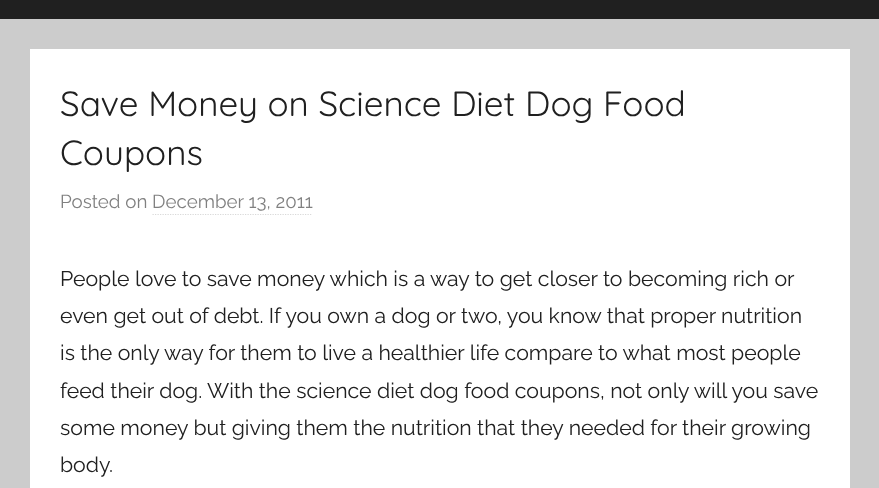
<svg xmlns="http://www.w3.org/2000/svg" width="879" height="488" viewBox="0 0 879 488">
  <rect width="100%" height="100%" fill="#cccccc"/>
  <rect x="0" y="0" width="879" height="19" fill="#202020"/>
  <rect x="30" y="49" width="820" height="439" fill="#ffffff"/>
  <text x="60" y="116" font-family="Quicksand" font-size="35" fill="#202020">Save Money on Science Diet Dog Food</text>
  <text x="60" y="165" font-family="Quicksand" font-size="35" fill="#202020">Coupons</text>
  <text x="60" y="208" font-family="Raleway" font-size="18.75" fill="#808080">Posted on December 13, 2011</text>
  <path d="M152.5 214.5H312.5" fill="none" stroke="#d9d9d9" stroke-width="1.2" stroke-dasharray="1.25 1.25"/>
  <text x="60" y="286" font-family="Raleway" font-size="21.25" fill="#202020">People love to save money which is a way to get closer to becoming rich or</text>
  <text x="60" y="323" font-family="Raleway" font-size="21.25" fill="#202020">even get out of debt. If you own a dog or two, you know that proper nutrition</text>
  <text x="60" y="360" font-family="Raleway" font-size="21.25" fill="#202020">is the only way for them to live a healthier life compare to what most people</text>
  <text x="60" y="398" font-family="Raleway" font-size="21.25" fill="#202020">feed their dog. With the science diet dog food coupons, not only will you save</text>
  <text x="60" y="435" font-family="Raleway" font-size="21.25" fill="#202020">some money but giving them the nutrition that they needed for their growing</text>
  <text x="60" y="472" font-family="Raleway" font-size="21.25" fill="#202020">body.</text>
</svg>
